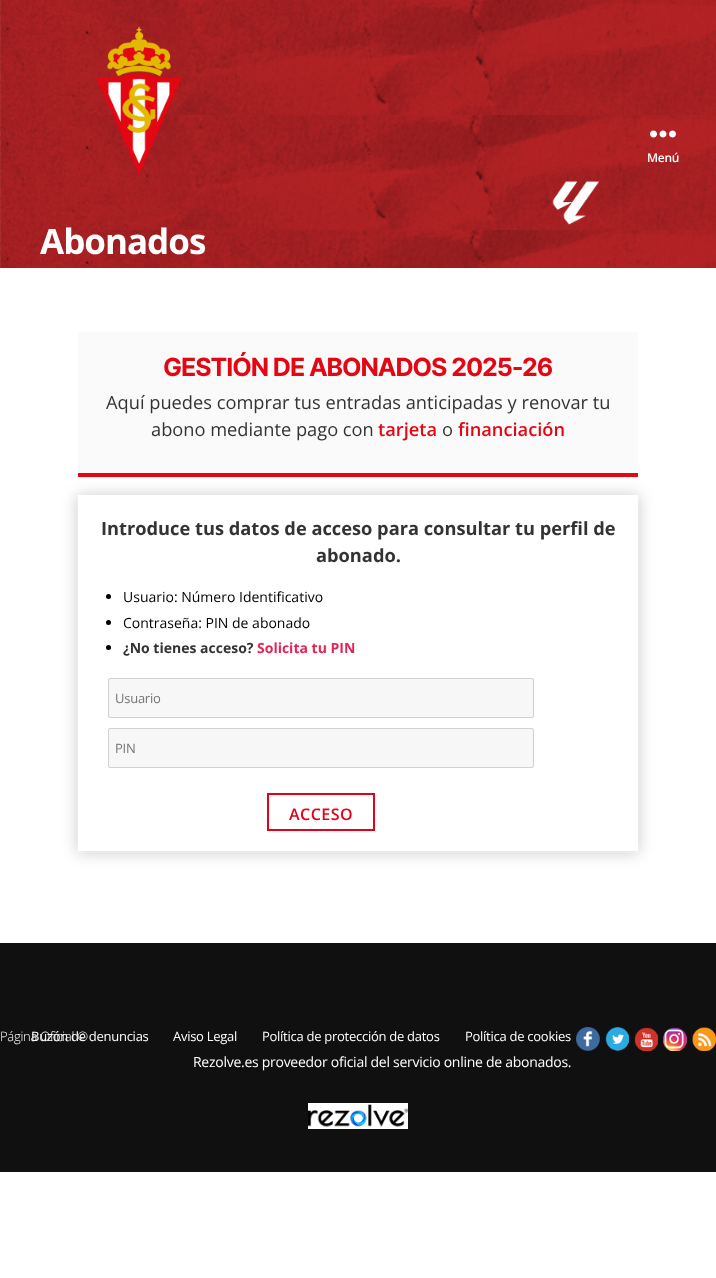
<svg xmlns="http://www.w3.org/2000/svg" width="716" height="1278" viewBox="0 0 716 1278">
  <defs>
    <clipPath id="clip1"><path d="M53 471H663V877H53ZM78 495H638V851H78Z" clip-rule="evenodd"/></clipPath>
    <filter id="blur1" x="-50%" y="-200%" width="200%" height="500%"><feGaussianBlur stdDeviation="7.5"/></filter>
  </defs>
  <rect width="100%" height="100%" fill="#ffffff"/>
  <image x="0" y="0" width="716" height="268" href="img1.png"/>
  <image x="650" y="130" width="26" height="8" href="img2.png"/>
  <text x="647" y="162" font-family="Open Sans" font-size="12" font-weight="600" letter-spacing="-0.27" fill="#ffffff">Menú</text>
  <image x="96" y="27" width="86" height="148" href="img3.png"/>
  <text x="40" y="254" font-family="Open Sans" font-size="35" font-weight="bold" letter-spacing="-1" fill="#ffffff">Abonados</text>
  <image x="552" y="181" width="48" height="44" href="img4.png"/>
  <rect x="78" y="332" width="560" height="141" fill="#fafafa"/>
  <rect x="78" y="473" width="560" height="4" fill="#e30613"/>
  <text x="163" y="376" font-family="Inter" font-size="25" font-weight="bold" letter-spacing="-1.05" fill="#e30613">GESTIÓN DE ABONADOS 2025-26</text>
  <text x="106" y="409" font-family="Open Sans" font-size="18.25" fill="#333333">Aquí puedes comprar tus entradas anticipadas y renovar tu</text>
  <text x="151" y="436" font-family="Open Sans" font-size="18.25" fill="#333333">abono mediante pago con</text>
  <text x="378" y="436" font-family="Open Sans" font-size="18.25" font-weight="600" fill="#e30613">tarjeta</text>
  <text x="442" y="436" font-family="Open Sans" font-size="18.25" fill="#333333">o</text>
  <text x="458" y="436" font-family="Open Sans" font-size="18.25" font-weight="600" fill="#e30613">financiación</text>
  <g clip-path="url(#clip1)">
    <rect x="77" y="495" width="562" height="358" fill="#272727" fill-opacity="0.2" filter="url(#blur1)"/>
  </g>
  <text x="101" y="535" font-family="Open Sans" font-size="18.25" font-weight="bold" fill="#333333">Introduce tus datos de acceso para consultar tu perfil de</text>
  <text x="316" y="562" font-family="Open Sans" font-size="18.25" font-weight="bold" fill="#333333">abonado.</text>
  <circle cx="108.5" cy="596.5" r="2.5" fill="#000000"/>
  <text x="123" y="602" font-family="Open Sans" font-size="14" fill="#000000">Usuario: Número Identificativo</text>
  <circle cx="108.5" cy="622.5" r="2.5" fill="#000000"/>
  <text x="123" y="628" font-family="Open Sans" font-size="14" fill="#000000">Contraseña: PIN de abonado</text>
  <circle cx="108.5" cy="647.5" r="2.5" fill="#000000"/>
  <text x="123" y="653" font-family="Open Sans" font-size="14" font-weight="bold" fill="#333333">¿No tienes acceso?</text>
  <text x="257" y="653" font-family="Open Sans" font-size="14" font-weight="bold" fill="#e22658">Solicita tu PIN</text>
  <rect x="108.5" y="678.5" width="425" height="39" rx="1.5" fill="#f7f7f7" stroke="#d1d1d1"/>
  <text x="115" y="703" font-family="Open Sans" font-size="13" letter-spacing="-0.25" fill="#757575">Usuario</text>
  <rect x="108.5" y="728.5" width="425" height="39" rx="1.5" fill="#f7f7f7" stroke="#d1d1d1"/>
  <text x="115" y="753" font-family="Open Sans" font-size="13" letter-spacing="-0.25" fill="#757575">PIN</text>
  <rect x="268" y="794" width="106" height="36" fill="none" stroke="#e2001a" stroke-width="2"/>
  <text x="289" y="820" font-family="Open Sans" font-size="16" font-weight="600" letter-spacing="0.5" fill="#e2001a">ACCESO</text>
  <rect x="0" y="943" width="716" height="229" fill="#101010"/>
  <text x="31" y="1041" font-family="Open Sans" font-size="13" letter-spacing="-0.27" fill="#ffffff">Buzón de denuncias</text>
  <text x="0" y="1041" font-family="Open Sans" font-size="13" font-weight="300" letter-spacing="-0.27" fill="#ffffff">Página Oficial ©</text>
  <image x="576" y="1027" width="24" height="24" href="img5.png"/>
  <image x="605" y="1027" width="24" height="24" href="img6.png"/>
  <image x="634" y="1027" width="24" height="24" href="img7.png"/>
  <image x="663" y="1027" width="24" height="24" href="img8.png"/>
  <image x="692" y="1027" width="24" height="24" href="img9.png"/>
  <text x="173" y="1041" font-family="Open Sans" font-size="13" letter-spacing="-0.27" fill="#ffffff">Aviso Legal</text>
  <text x="262" y="1041" font-family="Open Sans" font-size="13" letter-spacing="-0.27" fill="#ffffff">Política de protección de datos</text>
  <text x="465" y="1041" font-family="Open Sans" font-size="13" letter-spacing="-0.27" fill="#ffffff">Política de cookies</text>
  <text x="193" y="1067" font-family="Open Sans" font-size="14" letter-spacing="-0.27" fill="#ffffff">Rezolve.es proveedor oficial del servicio online de abonados.</text>
  <image x="308" y="1103" width="100" height="26" href="img10.png"/>
</svg>
